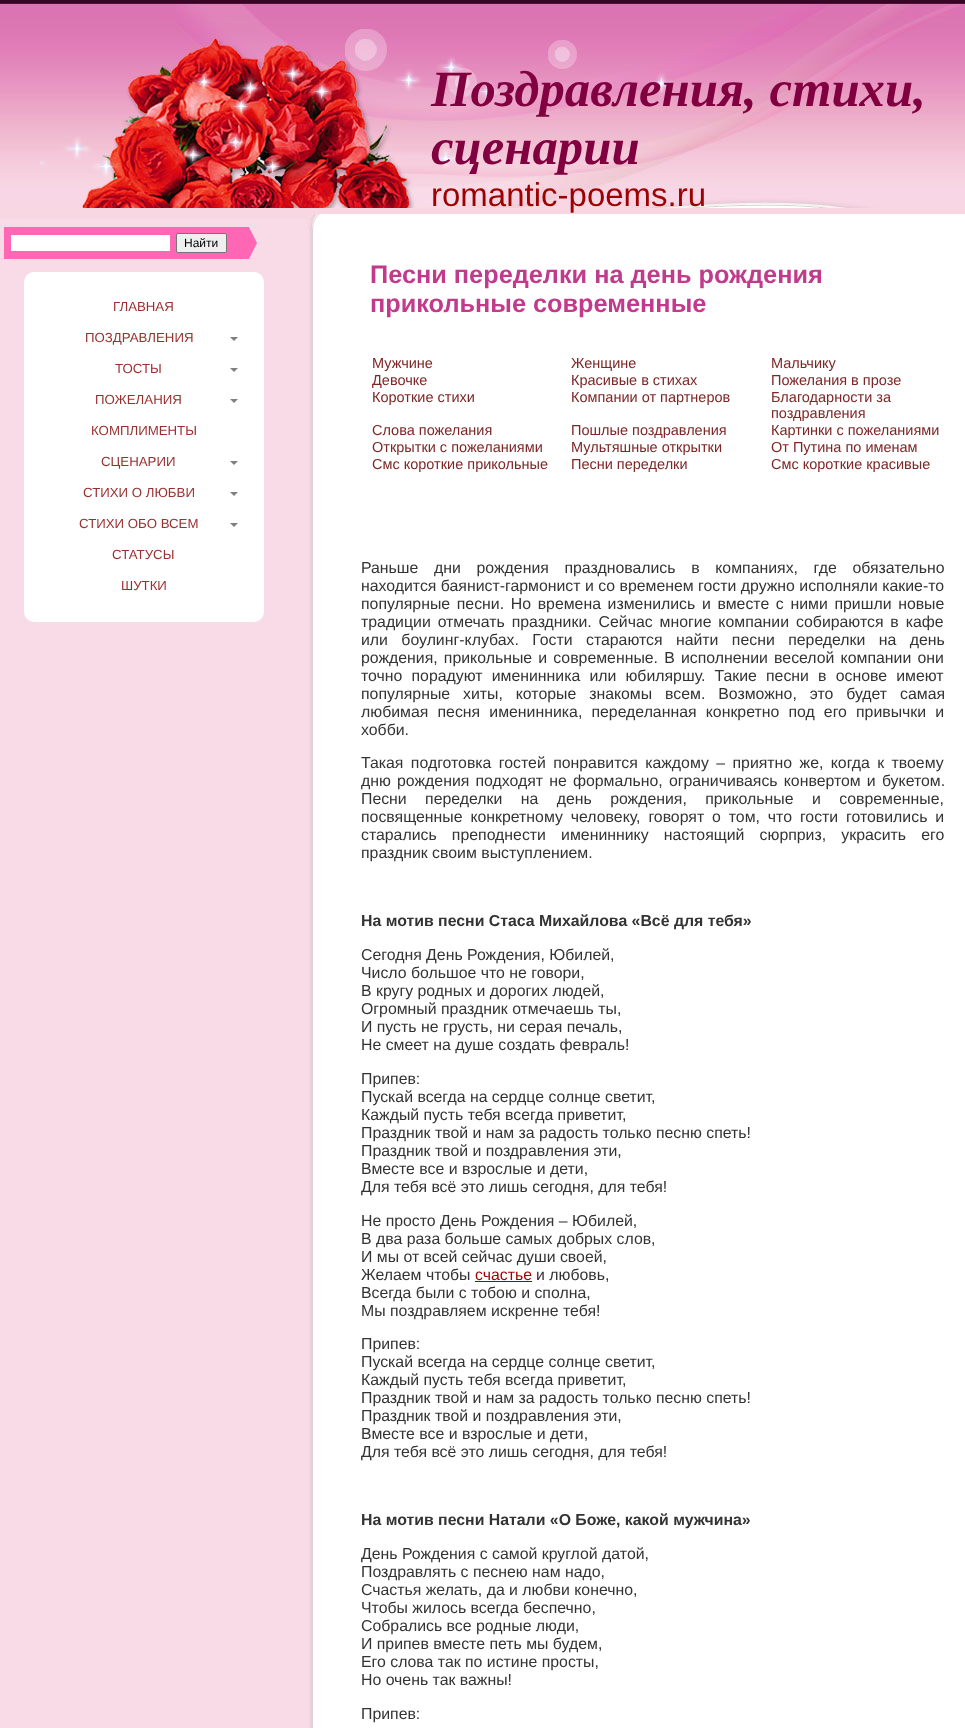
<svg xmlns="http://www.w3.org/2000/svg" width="965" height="1728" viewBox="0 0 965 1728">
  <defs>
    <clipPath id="clip1"><rect x="227" y="227" width="30" height="32"/></clipPath>
  </defs>
  <rect width="100%" height="100%" fill="#f9dbe7"/>
  <image x="0" y="208" width="965" height="11" href="img1.png"/>
  <image x="0" y="0" width="965" height="208" href="img2.png"/>
  <text x="431" y="106" font-family="Liberation Serif" font-size="50.75" font-weight="bold" font-style="italic" fill="#800040">Поздравления, стихи,</text>
  <text x="431" y="164" font-family="Liberation Serif" font-size="50.75" font-weight="bold" font-style="italic" fill="#800040">сценарии</text>
  <text x="431" y="206" font-family="Liberation Sans" font-size="33" fill="#9b0200">romantic-poems.ru</text>
  <rect x="4" y="227" width="223" height="32" fill="#ff66b3"/>
  <rect x="11" y="235" width="159" height="16" fill="#ffffff"/>
  <rect x="176.5" y="233.5" width="50" height="19" rx="1.5" fill="#efefef" stroke="#767676"/>
  <text x="184" y="247" font-family="Liberation Sans" font-size="12" fill="#000000">Найти</text>
  <g clip-path="url(#clip1)">
    <path d="M227 302V184L257 243Z" fill="#ff66b3"/>
  </g>
  <rect x="24" y="272" width="240" height="350" rx="10" fill="#ffffff"/>
  <text x="113" y="311" font-family="Liberation Sans" font-size="13.25" fill="#993030">ГЛАВНАЯ</text>
  <text x="85" y="342" font-family="Liberation Sans" font-size="13.25" fill="#993030">ПОЗДРАВЛЕНИЯ</text>
  <path d="M230 337H238L234 341Z" fill="#808080"/>
  <text x="115" y="373" font-family="Liberation Sans" font-size="13.25" fill="#993030">ТОСТЫ</text>
  <path d="M230 368H238L234 372Z" fill="#808080"/>
  <text x="95" y="404" font-family="Liberation Sans" font-size="13.25" fill="#993030">ПОЖЕЛАНИЯ</text>
  <path d="M230 399H238L234 403Z" fill="#808080"/>
  <text x="91" y="435" font-family="Liberation Sans" font-size="13.25" fill="#993030">КОМПЛИМЕНТЫ</text>
  <text x="101" y="466" font-family="Liberation Sans" font-size="13.25" fill="#993030">СЦЕНАРИИ</text>
  <path d="M230 461H238L234 465Z" fill="#808080"/>
  <text x="83" y="497" font-family="Liberation Sans" font-size="13.25" fill="#993030">СТИХИ О ЛЮБВИ</text>
  <path d="M230 492H238L234 496Z" fill="#808080"/>
  <text x="79" y="528" font-family="Liberation Sans" font-size="13.25" fill="#993030">СТИХИ ОБО ВСЕМ</text>
  <path d="M230 523H238L234 527Z" fill="#808080"/>
  <text x="112" y="559" font-family="Liberation Sans" font-size="13.25" fill="#993030">СТАТУСЫ</text>
  <text x="121" y="590" font-family="Liberation Sans" font-size="13.25" fill="#993030">ШУТКИ</text>
  <image x="309" y="214" width="656" height="1514" href="img3.png"/>
  <image x="307" y="214" width="16" height="15" href="img4.png"/>
  <text x="370" y="283" font-family="Liberation Sans" font-size="25.3" font-weight="bold" fill="#c23a8b">Песни переделки на день рождения</text>
  <text x="370" y="312" font-family="Liberation Sans" font-size="25.3" font-weight="bold" fill="#c23a8b">прикольные современные</text>
  <text x="372" y="368" font-family="Liberation Sans" font-size="14.5" fill="#7d2727">Мужчине</text>
  <text x="571" y="368" font-family="Liberation Sans" font-size="14.5" fill="#7d2727">Женщине</text>
  <text x="771" y="368" font-family="Liberation Sans" font-size="14.5" fill="#7d2727">Мальчику</text>
  <text x="372" y="385" font-family="Liberation Sans" font-size="14.5" fill="#7d2727">Девочке</text>
  <text x="571" y="385" font-family="Liberation Sans" font-size="14.5" fill="#7d2727">Красивые в стихах</text>
  <text x="771" y="385" font-family="Liberation Sans" font-size="14.5" fill="#7d2727">Пожелания в прозе</text>
  <text x="372" y="402" font-family="Liberation Sans" font-size="14.5" fill="#7d2727">Короткие стихи</text>
  <text x="571" y="402" font-family="Liberation Sans" font-size="14.5" fill="#7d2727">Компании от партнеров</text>
  <text x="771" y="402" font-family="Liberation Sans" font-size="14.5" fill="#7d2727">Благодарности за</text>
  <text x="771" y="418" font-family="Liberation Sans" font-size="14.5" fill="#7d2727">поздравления</text>
  <text x="372" y="435" font-family="Liberation Sans" font-size="14.5" fill="#7d2727">Слова пожелания</text>
  <text x="571" y="435" font-family="Liberation Sans" font-size="14.5" fill="#7d2727">Пошлые поздравления</text>
  <text x="771" y="435" font-family="Liberation Sans" font-size="14.5" fill="#7d2727">Картинки с пожеланиями</text>
  <text x="372" y="452" font-family="Liberation Sans" font-size="14.5" fill="#7d2727">Открытки с пожеланиями</text>
  <text x="571" y="452" font-family="Liberation Sans" font-size="14.5" fill="#7d2727">Мультяшные открытки</text>
  <text x="771" y="452" font-family="Liberation Sans" font-size="14.5" fill="#7d2727">От Путина по именам</text>
  <text x="372" y="469" font-family="Liberation Sans" font-size="14.5" fill="#7d2727">Смс короткие прикольные</text>
  <text x="571" y="469" font-family="Liberation Sans" font-size="14.5" fill="#7d2727">Песни переделки</text>
  <text x="771" y="469" font-family="Liberation Sans" font-size="14.5" fill="#7d2727">Смс короткие красивые</text>
  <text x="361" y="573" word-spacing="11.25" font-family="Liberation Sans" font-size="15.85" fill="#333333">Раньше дни рождения праздновались в компаниях, где обязательно</text>
  <text x="361" y="591" font-family="Liberation Sans" font-size="15.85" fill="#333333">находится баянист-гармонист и со временем гости дружно исполняли какие-то</text>
  <text x="361" y="609" word-spacing="2.25" font-family="Liberation Sans" font-size="15.85" fill="#333333">популярные песни. Но времена изменились и вместе с ними пришли новые</text>
  <text x="361" y="627" word-spacing="2.5" font-family="Liberation Sans" font-size="15.85" fill="#333333">традиции отмечать праздники. Сейчас многие компании собираются в кафе</text>
  <text x="361" y="645" word-spacing="9" font-family="Liberation Sans" font-size="15.85" fill="#333333">или боулинг-клубах. Гости стараются найти песни переделки на день</text>
  <text x="361" y="663" word-spacing="1.75" font-family="Liberation Sans" font-size="15.85" fill="#333333">рождения, прикольные и современные. В исполнении веселой компании они</text>
  <text x="361" y="681" word-spacing="4.75" font-family="Liberation Sans" font-size="15.85" fill="#333333">точно порадуют именинника или юбиляршу. Такие песни в основе имеют</text>
  <text x="361" y="699" word-spacing="8.5" font-family="Liberation Sans" font-size="15.85" fill="#333333">популярные хиты, которые знакомы всем. Возможно, это будет самая</text>
  <text x="361" y="717" word-spacing="4.75" font-family="Liberation Sans" font-size="15.85" fill="#333333">любимая песня именинника, переделанная конкретно под его привычки и</text>
  <text x="361" y="735" font-family="Liberation Sans" font-size="15.85" fill="#333333">хобби.</text>
  <text x="361" y="768" word-spacing="3" font-family="Liberation Sans" font-size="15.85" fill="#333333">Такая подготовка гостей понравится каждому – приятно же, когда к твоему</text>
  <text x="361" y="786" word-spacing="1.75" font-family="Liberation Sans" font-size="15.85" fill="#333333">дню рождения подходят не формально, ограничиваясь конвертом и букетом.</text>
  <text x="361" y="804" word-spacing="14" font-family="Liberation Sans" font-size="15.85" fill="#333333">Песни переделки на день рождения, прикольные и современные,</text>
  <text x="361" y="822" word-spacing="3.5" font-family="Liberation Sans" font-size="15.85" fill="#333333">посвященные конкретному человеку, говорят о том, что гости готовились и</text>
  <text x="361" y="840" word-spacing="10.75" font-family="Liberation Sans" font-size="15.85" fill="#333333">старались преподнести имениннику настоящий сюрприз, украсить его</text>
  <text x="361" y="858" font-family="Liberation Sans" font-size="15.85" fill="#333333">праздник своим выступлением.</text>
  <text x="361" y="926" font-family="Liberation Sans" font-size="15.85" font-weight="bold" fill="#333333">На мотив песни Стаса Михайлова «Всё для тебя»</text>
  <text x="361" y="960" font-family="Liberation Sans" font-size="15.85" fill="#333333">Сегодня День Рождения, Юбилей,</text>
  <text x="361" y="978" font-family="Liberation Sans" font-size="15.85" fill="#333333">Число большое что не говори,</text>
  <text x="361" y="996" font-family="Liberation Sans" font-size="15.85" fill="#333333">В кругу родных и дорогих людей,</text>
  <text x="361" y="1014" font-family="Liberation Sans" font-size="15.85" fill="#333333">Огромный праздник отмечаешь ты,</text>
  <text x="361" y="1032" font-family="Liberation Sans" font-size="15.85" fill="#333333">И пусть не грусть, ни серая печаль,</text>
  <text x="361" y="1050" font-family="Liberation Sans" font-size="15.85" fill="#333333">Не смеет на душе создать февраль!</text>
  <text x="361" y="1084" font-family="Liberation Sans" font-size="15.85" fill="#333333">Припев:</text>
  <text x="361" y="1102" font-family="Liberation Sans" font-size="15.85" fill="#333333">Пускай всегда на сердце солнце светит,</text>
  <text x="361" y="1120" font-family="Liberation Sans" font-size="15.85" fill="#333333">Каждый пусть тебя всегда приветит,</text>
  <text x="361" y="1138" font-family="Liberation Sans" font-size="15.85" fill="#333333">Праздник твой и нам за радость только песню спеть!</text>
  <text x="361" y="1156" font-family="Liberation Sans" font-size="15.85" fill="#333333">Праздник твой и поздравления эти,</text>
  <text x="361" y="1174" font-family="Liberation Sans" font-size="15.85" fill="#333333">Вместе все и взрослые и дети,</text>
  <text x="361" y="1192" font-family="Liberation Sans" font-size="15.85" fill="#333333">Для тебя всё это лишь сегодня, для тебя!</text>
  <text x="361" y="1226" font-family="Liberation Sans" font-size="15.85" fill="#333333">Не просто День Рождения – Юбилей,</text>
  <text x="361" y="1244" font-family="Liberation Sans" font-size="15.85" fill="#333333">В два раза больше самых добрых слов,</text>
  <text x="361" y="1262" font-family="Liberation Sans" font-size="15.85" fill="#333333">И мы от всей сейчас души своей,</text>
  <text x="361" y="1280" font-family="Liberation Sans" font-size="15.85" fill="#333333">Желаем чтобы</text>
  <text x="475" y="1280" font-family="Liberation Sans" font-size="15.85" fill="#9b0200">счастье</text>
  <rect x="475" y="1281" width="57" height="1" fill="#9c0001"/>
  <text x="536" y="1280" font-family="Liberation Sans" font-size="15.85" fill="#333333">и любовь,</text>
  <text x="361" y="1298" font-family="Liberation Sans" font-size="15.85" fill="#333333">Всегда были с тобою и сполна,</text>
  <text x="361" y="1316" font-family="Liberation Sans" font-size="15.85" fill="#333333">Мы поздравляем искренне тебя!</text>
  <text x="361" y="1349" font-family="Liberation Sans" font-size="15.85" fill="#333333">Припев:</text>
  <text x="361" y="1367" font-family="Liberation Sans" font-size="15.85" fill="#333333">Пускай всегда на сердце солнце светит,</text>
  <text x="361" y="1385" font-family="Liberation Sans" font-size="15.85" fill="#333333">Каждый пусть тебя всегда приветит,</text>
  <text x="361" y="1403" font-family="Liberation Sans" font-size="15.85" fill="#333333">Праздник твой и нам за радость только песню спеть!</text>
  <text x="361" y="1421" font-family="Liberation Sans" font-size="15.85" fill="#333333">Праздник твой и поздравления эти,</text>
  <text x="361" y="1439" font-family="Liberation Sans" font-size="15.85" fill="#333333">Вместе все и взрослые и дети,</text>
  <text x="361" y="1457" font-family="Liberation Sans" font-size="15.85" fill="#333333">Для тебя всё это лишь сегодня, для тебя!</text>
  <text x="361" y="1525" font-family="Liberation Sans" font-size="15.85" font-weight="bold" fill="#333333">На мотив песни Натали «О Боже, какой мужчина»</text>
  <text x="361" y="1559" font-family="Liberation Sans" font-size="15.85" fill="#333333">День Рождения с самой круглой датой,</text>
  <text x="361" y="1577" font-family="Liberation Sans" font-size="15.85" fill="#333333">Поздравлять с песнею нам надо,</text>
  <text x="361" y="1595" font-family="Liberation Sans" font-size="15.85" fill="#333333">Счастья желать, да и любви конечно,</text>
  <text x="361" y="1613" font-family="Liberation Sans" font-size="15.85" fill="#333333">Чтобы жилось всегда беспечно,</text>
  <text x="361" y="1631" font-family="Liberation Sans" font-size="15.85" fill="#333333">Собрались все родные люди,</text>
  <text x="361" y="1649" font-family="Liberation Sans" font-size="15.85" fill="#333333">И припев вместе петь мы будем,</text>
  <text x="361" y="1667" font-family="Liberation Sans" font-size="15.85" fill="#333333">Его слова так по истине просты,</text>
  <text x="361" y="1685" font-family="Liberation Sans" font-size="15.85" fill="#333333">Но очень так важны!</text>
  <text x="361" y="1719" font-family="Liberation Sans" font-size="15.85" fill="#333333">Припев:</text>
</svg>
